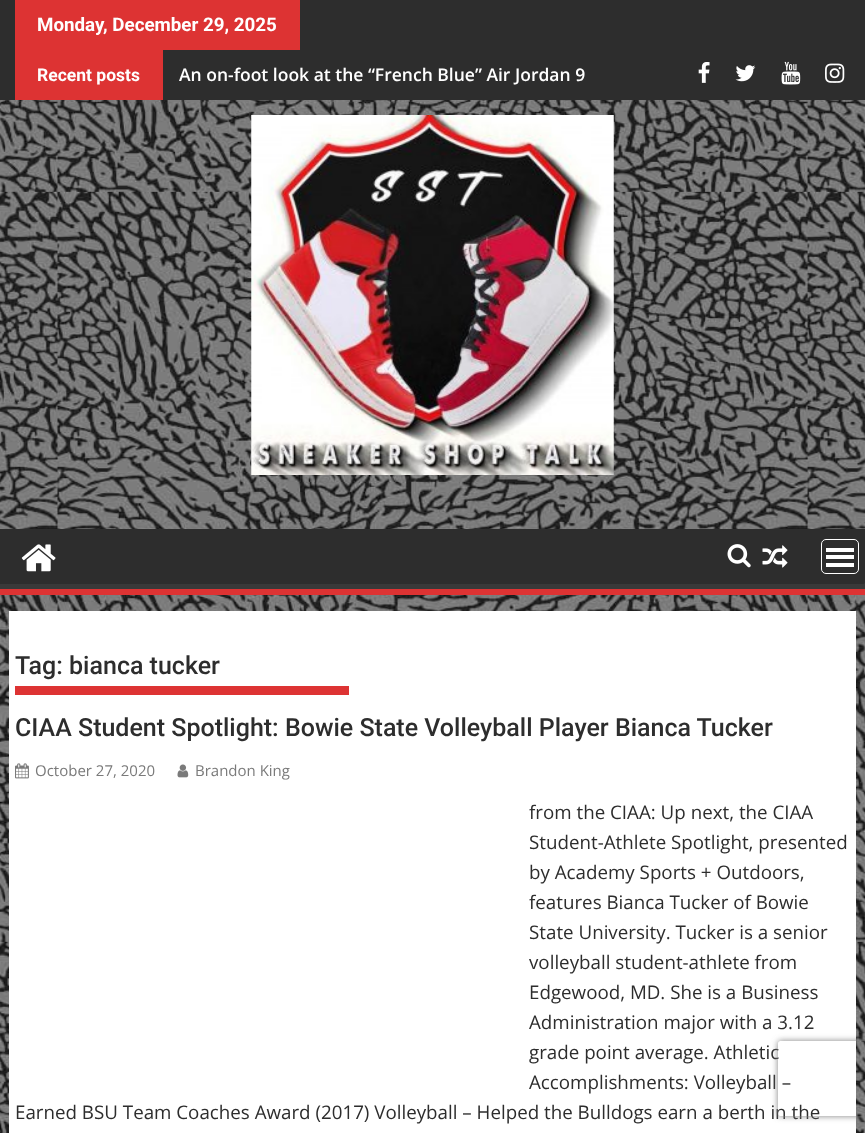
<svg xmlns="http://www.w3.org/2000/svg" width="865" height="1133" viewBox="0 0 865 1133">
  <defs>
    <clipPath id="clip1"><rect x="0" y="529" width="865" height="60"/></clipPath>
    <clipPath id="clip2"><path d="M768 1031H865V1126H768ZM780.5 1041H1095.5C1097 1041 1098 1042 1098 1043.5V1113.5C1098 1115 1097 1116 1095.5 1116H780.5C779 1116 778 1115 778 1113.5V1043.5C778 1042 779 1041 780.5 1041Z" clip-rule="evenodd"/></clipPath>
    <filter id="blur1" x="-50%" y="-200%" width="200%" height="500%"><feGaussianBlur stdDeviation="3"/></filter>
  </defs>
  <rect width="100%" height="100%" fill="#ffffff"/>
  <image x="0" y="100" width="865" height="1033" href="img1.png"/>
  <rect x="0" y="0" width="865" height="100" fill="#2d2d2d"/>
  <rect x="15" y="0" width="285" height="50" fill="#dd3333"/>
  <text x="37" y="31" font-family="Roboto" font-size="18.75" font-weight="bold" fill="#ffffff">Monday, December 29, 2025</text>
  <rect x="15" y="50" width="148" height="50" fill="#dd3333"/>
  <text x="37" y="81" font-family="Roboto" font-size="17.5" font-weight="bold" fill="#ffffff">Recent posts</text>
  <text x="179" y="81" font-family="Open Sans" font-size="17.5" font-weight="600" fill="#ffffff">An on-foot look at the “French Blue” Air Jordan 9</text>
  <image x="698" y="62" width="12" height="21" href="img2.png"/>
  <image x="735" y="65" width="21" height="17" href="img3.png"/>
  <image x="781" y="61" width="20" height="24" href="img4.png"/>
  <image x="825" y="63" width="20" height="20" href="img5.png"/>
  <image x="251" y="115" width="363" height="360" href="img6.png"/>
  <rect x="0" y="529" width="865" height="55" fill="#2d2d2d"/>
  <g clip-path="url(#clip1)">
    <path d="M-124 405H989V712H-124ZM-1 521H864C864 521 865 522 865 522V582C865 583 864 584 864 584H-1C-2 584-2 583-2 582V522C-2 522-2 521-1 521Z" fill="#393939" fill-rule="evenodd"/>
  </g>
  <rect x="0" y="589" width="865" height="6" fill="#dd3333"/>
  <image x="21" y="544" width="35" height="28" href="img7.png"/>
  <image x="727" y="544" width="24" height="24" href="img8.png"/>
  <image x="762" y="545" width="26" height="23" href="img9.png"/>
  <rect x="821.5" y="539.5" width="37" height="34" rx="4.5" fill="none" stroke="#ffffff"/>
  <rect x="826" y="563" width="28" height="4" fill="#ffffff"/>
  <rect x="826" y="555" width="28" height="4" fill="#ffffff"/>
  <rect x="826" y="548" width="28" height="4" fill="#ffffff"/>
  <rect x="9" y="611" width="847" height="522" fill="#ffffff"/>
  <text x="15" y="674" font-family="Roboto" font-size="25" font-weight="500" fill="#2d2d2d">Tag: bianca tucker</text>
  <rect x="15" y="686" width="334" height="9" fill="#dd3333"/>
  <text x="15" y="736" font-family="Roboto" font-size="25" font-weight="500" fill="#2d2d2d">CIAA Student Spotlight: Bowie State Volleyball Player Bianca Tucker</text>
  <image x="15" y="763" width="14" height="16" href="img10.png"/>
  <text x="35" y="776" font-family="Open Sans" font-size="15" fill="#7a7a7a">October 27, 2020</text>
  <image x="177" y="764" width="12" height="14" href="img11.png"/>
  <text x="195" y="776" font-family="Open Sans" font-size="15" fill="#7a7a7a">Brandon King</text>
  <text x="529" y="819" font-family="Open Sans" font-size="18.75" fill="#2d2d2d">from the CIAA: Up next, the CIAA</text>
  <text x="529" y="849" font-family="Open Sans" font-size="18.75" fill="#2d2d2d">Student-Athlete Spotlight, presented</text>
  <text x="529" y="879" font-family="Open Sans" font-size="18.75" fill="#2d2d2d">by Academy Sports + Outdoors,</text>
  <text x="529" y="909" font-family="Open Sans" font-size="18.75" fill="#2d2d2d">features Bianca Tucker of Bowie</text>
  <text x="529" y="939" font-family="Open Sans" font-size="18.75" fill="#2d2d2d">State University. Tucker is a senior</text>
  <text x="529" y="969" font-family="Open Sans" font-size="18.75" fill="#2d2d2d">volleyball student-athlete from</text>
  <text x="529" y="999" font-family="Open Sans" font-size="18.75" fill="#2d2d2d">Edgewood, MD. She is a Business</text>
  <text x="529" y="1029" font-family="Open Sans" font-size="18.75" fill="#2d2d2d">Administration major with a 3.12</text>
  <text x="529" y="1059" font-family="Open Sans" font-size="18.75" fill="#2d2d2d">grade point average. Athletic</text>
  <text x="529" y="1089" font-family="Open Sans" font-size="18.75" fill="#2d2d2d">Accomplishments: Volleyball –</text>
  <text x="15" y="1119" font-family="Open Sans" font-size="18.75" fill="#2d2d2d">Earned BSU Team Coaches Award (2017) Volleyball – Helped the Bulldogs earn a berth in the</text>
  <g clip-path="url(#clip2)">
    <rect x="778" y="1041" width="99" height="75" rx="2.5" fill="#808080" filter="url(#blur1)"/>
  </g>
</svg>
